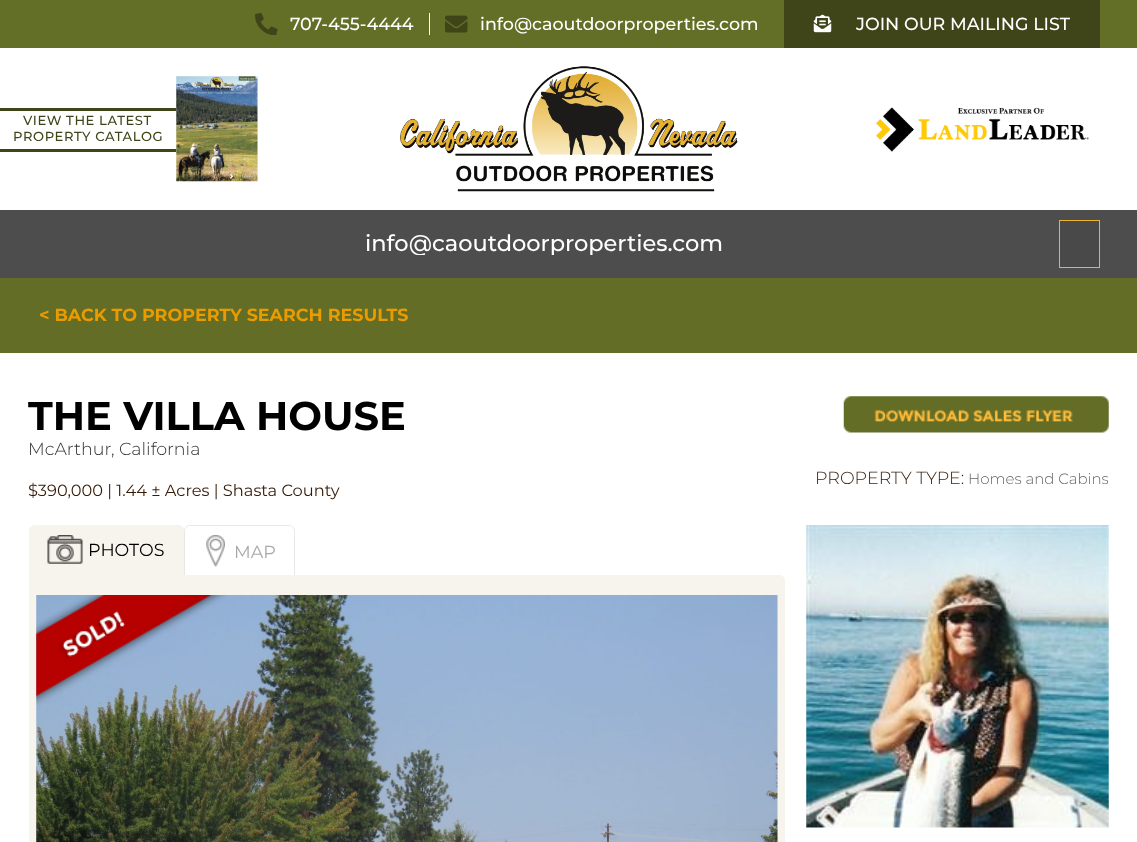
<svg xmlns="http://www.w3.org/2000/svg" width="1137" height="842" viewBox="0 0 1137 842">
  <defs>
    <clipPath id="clip1"><rect x="365" y="233" width="359" height="22"/></clipPath>
  </defs>
  <rect width="100%" height="100%" fill="#ffffff"/>
  <rect x="0" y="0" width="1137" height="48" fill="#636f27"/>
  <image x="255" y="13" width="23" height="22" href="img1.png"/>
  <text x="290" y="30" font-family="Montserrat" font-size="17.5" font-weight="500" fill="#ffffff">707-455-4444</text>
  <rect x="429" y="13" width="1" height="22" fill="#ffffff"/>
  <image x="445" y="15" width="23" height="18" href="img2.png"/>
  <text x="480" y="30" font-family="Montserrat" font-size="17.5" font-weight="500" fill="#ffffff">info@caoutdoorproperties.com</text>
  <rect x="784" y="0" width="316" height="48" fill="#3f4519"/>
  <image x="813" y="14" width="19" height="19" href="img3.png"/>
  <text x="856" y="30" font-family="Montserrat" font-size="17.5" font-weight="500" fill="#ffffff">JOIN OUR MAILING LIST</text>
  <rect x="0" y="108" width="176" height="3" fill="#3f4519"/>
  <rect x="0" y="149" width="176" height="3" fill="#3f4519"/>
  <text x="23" y="125" font-family="Montserrat" font-size="13.1" font-weight="500" letter-spacing="0.6" fill="#3f4519">VIEW THE LATEST</text>
  <text x="13" y="141" font-family="Montserrat" font-size="13.1" font-weight="500" letter-spacing="0.6" fill="#3f4519">PROPERTY CATALOG</text>
  <image x="176" y="76" width="82" height="106" href="img4.png"/>
  <image x="400" y="66" width="338" height="126" href="img5.png"/>
  <image x="876" y="107" width="213" height="45" href="img6.png"/>
  <rect x="0" y="210" width="1137" height="68" fill="#4d4d4d"/>
  <g clip-path="url(#clip1)">
    <text x="365" y="251" font-family="Montserrat" font-size="22.5" font-weight="500" fill="#ffffff">info@caoutdoorproperties.com</text>
  </g>
  <rect x="1059.5" y="220.5" width="40" height="47" fill="#494949" stroke="#efb42a"/>
  <rect x="0" y="278" width="1137" height="75" fill="#646d26"/>
  <text x="39" y="321" font-family="Montserrat" font-size="17.5" font-weight="bold" fill="#e99b00">&lt; BACK TO PROPERTY SEARCH RESULTS</text>
  <text x="28" y="430" font-family="Montserrat" font-size="40" font-weight="bold" fill="#000000">THE VILLA HOUSE</text>
  <text x="28" y="455" font-family="Montserrat" font-size="17.5" font-weight="300" fill="#333333">McArthur, California</text>
  <text x="28" y="496" font-family="Montserrat" font-size="16.25" fill="#361b07">$390,000 | 1.44 ± Acres | Shasta County</text>
  <image x="843" y="396" width="266" height="37" href="img7.png"/>
  <text x="815" y="484" font-family="Montserrat" font-size="17.5" font-weight="300" fill="#361b07">PROPERTY TYPE:</text>
  <text x="968" y="484" font-family="Montserrat" font-size="15" font-weight="300" fill="#666666">Homes and Cabins</text>
  <path d="M190 525H289C292 525 295 528 295 531V589H184V531C184 528 187 525 190 525ZM190 526H289C292 526 294 528 294 531V589H185V531C185 528 187 526 190 526Z" fill="#e8e8e8" fill-rule="evenodd"/>
  <path d="M29 575H779C782.5 575 785 577.5 785 581V842C785 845.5 782.5 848 779 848H35C31.5 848 29 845.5 29 842Z" fill="#f7f3ed"/>
  <path d="M35 525H178C181.5 525 184 527.5 184 531V588H29V531C29 527.5 31.5 525 35 525Z" fill="#f7f3ed"/>
  <image x="47" y="535" width="36" height="29" href="img8.png"/>
  <text x="88" y="556" font-family="Montserrat" font-size="17.5" fill="#000000">PHOTOS</text>
  <image x="206" y="535" width="19" height="32" href="img9.png"/>
  <text x="234" y="558" font-family="Montserrat" font-size="17.5" fill="#a9a9a9">MAP</text>
  <image x="36" y="595" width="742" height="247" href="img10.png"/>
  <image x="36" y="595" width="192" height="111" href="img11.png"/>
  <image x="806" y="525" width="303" height="303" href="img12.png"/>
</svg>
